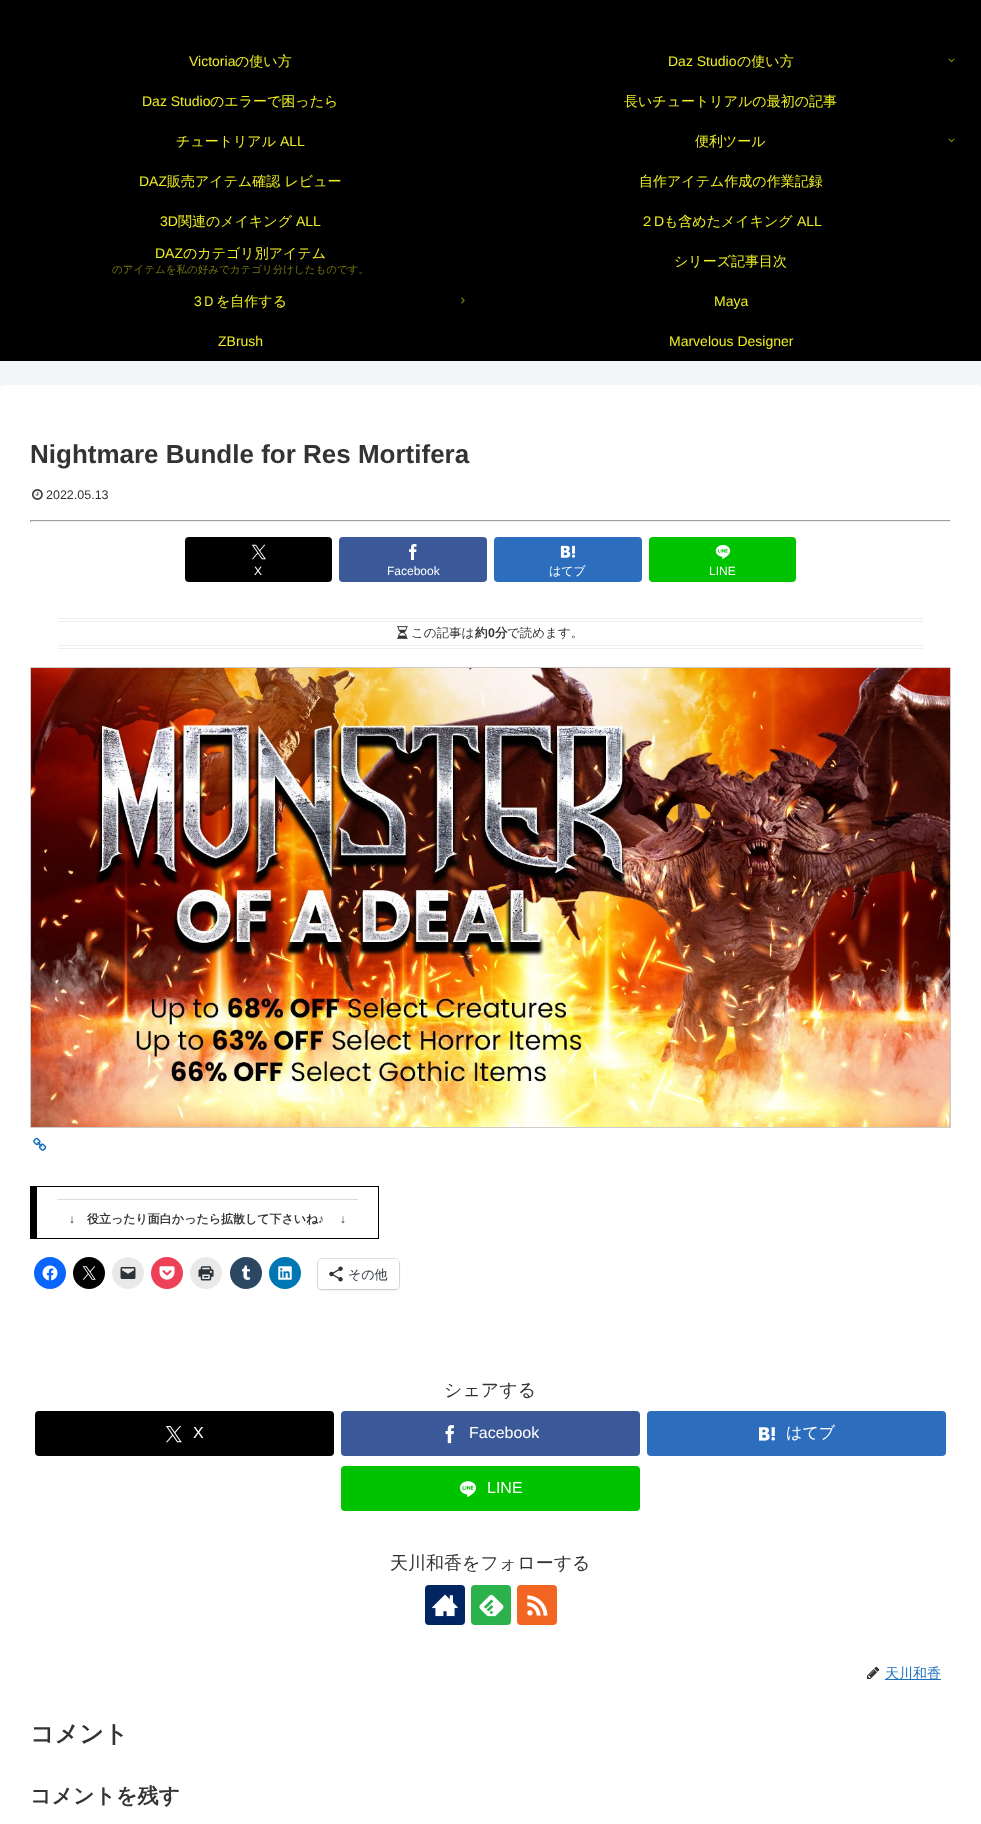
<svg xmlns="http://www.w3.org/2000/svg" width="981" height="1824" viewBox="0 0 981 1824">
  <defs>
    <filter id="blur1" x="-50%" y="-200%" width="200%" height="500%"><feGaussianBlur stdDeviation="1"/></filter>
  </defs>
  <rect width="100%" height="100%" fill="#f4f5f7"/>
  <rect x="0" y="0" width="981" height="361" fill="#000000"/>
  <text x="189" y="66" font-family="Liberation Sans" font-size="14" fill="#eeee22">Victoria</text>
  <text x="235" y="66" font-family="WenQuanYi Zen Hei" font-size="14" font-weight="500" fill="#eeee22">の使い方</text>
  <text x="668" y="66" font-family="Liberation Sans" font-size="14" fill="#eeee22">Daz Studio</text>
  <text x="737" y="66" font-family="WenQuanYi Zen Hei" font-size="14" font-weight="500" fill="#eeee22">の使い方</text>
  <image x="948" y="58" width="7" height="5" href="img1.png"/>
  <text x="142" y="106" font-family="Liberation Sans" font-size="14" fill="#eeee22">Daz Studio</text>
  <text x="210" y="106" font-family="WenQuanYi Zen Hei" font-size="14" font-weight="500" fill="#eeee22">のエラーで困ったら</text>
  <text x="624" y="106" font-family="WenQuanYi Zen Hei" font-size="14" font-weight="500" fill="#eeee22">長いチュートリアルの最初の記事</text>
  <text x="176" y="146" font-family="WenQuanYi Zen Hei" font-size="14" font-weight="500" fill="#eeee22">チュートリアル</text>
  <text x="280" y="146" font-family="Liberation Sans" font-size="14" fill="#eeee22">ALL</text>
  <text x="695" y="146" font-family="WenQuanYi Zen Hei" font-size="14" font-weight="500" fill="#eeee22">便利ツール</text>
  <image x="948" y="138" width="7" height="5" href="img1.png"/>
  <text x="139" y="186" font-family="Liberation Sans" font-size="14" fill="#eeee22">DAZ</text>
  <text x="167" y="186" font-family="WenQuanYi Zen Hei" font-size="14" font-weight="500" fill="#eeee22">販売アイテム確認 レビュー</text>
  <text x="639" y="186" font-family="WenQuanYi Zen Hei" font-size="14" font-weight="500" fill="#eeee22">自作アイテム作成の作業記録</text>
  <text x="160" y="226" font-family="Liberation Sans" font-size="14" fill="#eeee22">3D</text>
  <text x="178" y="226" font-family="WenQuanYi Zen Hei" font-size="14" font-weight="500" fill="#eeee22">関連のメイキング</text>
  <text x="296" y="226" font-family="Liberation Sans" font-size="14" fill="#eeee22">ALL</text>
  <text x="640" y="226" font-family="WenQuanYi Zen Hei" font-size="14" font-weight="500" fill="#eeee22">２</text>
  <text x="654" y="226" font-family="Liberation Sans" font-size="14" fill="#eeee22">D</text>
  <text x="664" y="226" font-family="WenQuanYi Zen Hei" font-size="14" font-weight="500" fill="#eeee22">も含めたメイキング</text>
  <text x="797" y="226" font-family="Liberation Sans" font-size="14" fill="#eeee22">ALL</text>
  <text x="155" y="258" font-family="Liberation Sans" font-size="14" fill="#eeee22">DAZ</text>
  <text x="183" y="258" font-family="WenQuanYi Zen Hei" font-size="14" font-weight="500" fill="#eeee22">のカテゴリ別アイテム</text>
  <text x="112" y="273" font-family="WenQuanYi Zen Hei" font-size="10.5" font-weight="500" fill="#777711">のアイテムを私の好みでカテゴリ分けしたものです。</text>
  <text x="674" y="266" font-family="WenQuanYi Zen Hei" font-size="14" font-weight="500" fill="#eeee22">シリーズ記事目次</text>
  <text x="194" y="306" font-family="Liberation Sans" font-size="14" fill="#eeee22">3</text>
  <text x="202" y="306" font-family="WenQuanYi Zen Hei" font-size="14" font-weight="500" fill="#eeee22">Ｄを自作する</text>
  <image x="461" y="297" width="4" height="7" href="img2.png"/>
  <text x="714" y="306" font-family="Liberation Sans" font-size="14" fill="#eeee22">Maya</text>
  <text x="218" y="346" font-family="Liberation Sans" font-size="14" fill="#eeee22">ZBrush</text>
  <text x="669" y="346" font-family="Liberation Sans" font-size="14" fill="#eeee22">Marvelous Designer</text>
  <rect x="0" y="385" width="981" height="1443" rx="4" fill="#ffffff"/>
  <text x="30" y="463" font-family="Liberation Sans" font-size="26" font-weight="bold" fill="#333333">Nightmare Bundle for Res Mortifera</text>
  <image x="32" y="489" width="11" height="11" href="img3.png"/>
  <text x="46" y="499" font-family="Liberation Sans" font-size="12.5" fill="#333333">2022.05.13</text>
  <rect x="30" y="520" width="921" height="1" fill="#9f9f9f"/>
  <rect x="950" y="520" width="1" height="2" fill="#eeeeee"/>
  <rect x="30" y="521" width="921" height="1" fill="#eeeeee"/>
  <rect x="30" y="520" width="1" height="2" fill="#9f9f9f"/>
  <rect x="185" y="537" width="147" height="45" rx="4" fill="#000000"/>
  <image x="251" y="544" width="15" height="16" href="img4.png"/>
  <text x="254" y="575" font-family="Liberation Sans" font-size="12" fill="#ffffff">X</text>
  <rect x="339" y="537" width="148" height="45" rx="4" fill="#3b5998"/>
  <image x="409" y="544" width="8" height="16" href="img5.png"/>
  <text x="387" y="575" font-family="Liberation Sans" font-size="12" fill="#ffffff">Facebook</text>
  <rect x="494" y="537" width="148" height="45" rx="4" fill="#2c6ebd"/>
  <image x="560" y="545" width="16" height="13" href="img6.png"/>
  <text x="549" y="575" font-family="WenQuanYi Zen Hei" font-size="12" font-weight="500" fill="#ffffff">はてブ</text>
  <rect x="649" y="537" width="147" height="45" rx="4" fill="#00c300"/>
  <image x="715" y="545" width="16" height="14" href="img7.png"/>
  <text x="709" y="575" font-family="Liberation Sans" font-size="12" fill="#ffffff">LINE</text>
  <rect x="58" y="618" width="865" height="1" fill="#eeeeee"/>
  <rect x="58" y="621" width="865" height="1" fill="#eeeeee"/>
  <rect x="58" y="645" width="865" height="1" fill="#eeeeee"/>
  <rect x="58" y="648" width="865" height="1" fill="#eeeeee"/>
  <image x="397" y="626" width="11" height="13" href="img8.png"/>
  <text x="411" y="637" font-family="WenQuanYi Zen Hei" font-size="12.5" font-weight="500" fill="#333333">この記事は</text>
  <text x="475" y="637" font-family="WenQuanYi Zen Hei" font-size="12.5" font-weight="bold" fill="#333333">約</text>
  <text x="488" y="637" font-family="Liberation Sans" font-size="12.5" font-weight="bold" fill="#333333">0</text>
  <text x="495" y="637" font-family="WenQuanYi Zen Hei" font-size="12.5" font-weight="bold" fill="#333333">分</text>
  <text x="507" y="637" font-family="WenQuanYi Zen Hei" font-size="12.5" font-weight="500" fill="#333333">で読めます。</text>
  <rect x="30.5" y="667.5" width="920" height="460" fill="none" stroke="#cccccc"/>
  <image x="31" y="668" width="919" height="459" href="img9.png"/>
  <image x="33" y="1137" width="14" height="14" href="img10.png"/>
  <rect x="30" y="1186" width="349" height="1" fill="#000000"/>
  <rect x="378" y="1186" width="1" height="53" fill="#000000"/>
  <rect x="30" y="1238" width="349" height="1" fill="#000000"/>
  <rect x="30" y="1186" width="7" height="53" fill="#000000"/>
  <rect x="57" y="1199" width="301" height="1" fill="#dcdcde"/>
  <text x="69" y="1223" font-family="Liberation Sans" font-size="12" font-weight="bold" fill="#333333">↓</text>
  <text x="87" y="1223" font-family="WenQuanYi Zen Hei" font-size="12" font-weight="bold" fill="#333333">役立ったり面白かったら拡散して下さいね</text>
  <text x="318" y="1223" font-family="Liberation Sans" font-size="12" font-weight="bold" fill="#333333">♪</text>
  <text x="340" y="1223" font-family="Liberation Sans" font-size="12" font-weight="bold" fill="#333333">↓</text>
  <circle cx="50" cy="1273" r="16" fill="#0866ff"/>
  <image x="42" y="1265" width="16" height="16" href="img11.png"/>
  <circle cx="89" cy="1273" r="16" fill="#000000"/>
  <image x="82" y="1266" width="14" height="14" href="img12.png"/>
  <circle cx="128" cy="1273" r="16" fill="#e9e9e9"/>
  <image x="120" y="1267" width="16" height="12" href="img13.png"/>
  <circle cx="167" cy="1273" r="16" fill="#ee4056"/>
  <image x="159" y="1266" width="16" height="14" href="img14.png"/>
  <circle cx="206" cy="1273" r="16" fill="#e9e9e9"/>
  <image x="198" y="1266" width="16" height="15" href="img15.png"/>
  <circle cx="246" cy="1273" r="16" fill="#2c4762"/>
  <image x="241" y="1265" width="10" height="15" href="img16.png"/>
  <circle cx="285" cy="1273" r="16" fill="#0077b5"/>
  <image x="278" y="1266" width="14" height="14" href="img17.png"/>
  <rect x="317.5" y="1258.5" width="82" height="31" rx="4.5" fill="none" stroke="#e0e0e0"/>
  <rect x="318" y="1260" width="81" height="30" rx="4" fill="#000000" fill-opacity="0.12" filter="url(#blur1)"/>
  <rect x="318" y="1259" width="81" height="30" rx="4" fill="#ffffff"/>
  <image x="329" y="1266" width="14" height="16" href="img18.png"/>
  <text x="348" y="1279" font-family="WenQuanYi Zen Hei" font-size="13" font-weight="500" fill="#2c3338">その他</text>
  <text x="444" y="1396" font-family="WenQuanYi Zen Hei" font-size="18" font-weight="500" fill="#333333">シェアする</text>
  <rect x="35" y="1411" width="299" height="45" rx="4" fill="#000000"/>
  <image x="166" y="1426" width="16" height="17" href="img19.png"/>
  <text x="193" y="1438" font-family="Liberation Sans" font-size="16" fill="#ffffff">X</text>
  <rect x="341" y="1411" width="299" height="45" rx="4" fill="#3b5998"/>
  <image x="445" y="1425" width="9" height="19" href="img20.png"/>
  <text x="469" y="1438" font-family="Liberation Sans" font-size="16" fill="#ffffff">Facebook</text>
  <rect x="647" y="1411" width="299" height="45" rx="4" fill="#2c6ebd"/>
  <image x="759" y="1427" width="16" height="14" href="img21.png"/>
  <text x="786" y="1438" font-family="WenQuanYi Zen Hei" font-size="16" font-weight="500" fill="#ffffff">はてブ</text>
  <rect x="341" y="1466" width="299" height="45" rx="4" fill="#00c300"/>
  <image x="459" y="1481" width="18" height="16" href="img22.png"/>
  <text x="487" y="1493" font-family="Liberation Sans" font-size="16" fill="#ffffff">LINE</text>
  <text x="390" y="1569" font-family="WenQuanYi Zen Hei" font-size="18" font-weight="500" fill="#333333">天川和香をフォローする</text>
  <rect x="425" y="1585" width="40" height="40" rx="4" fill="#002561"/>
  <image x="432" y="1594" width="26" height="23" href="img23.png"/>
  <rect x="471" y="1585" width="40" height="40" rx="4" fill="#2bb24c"/>
  <image x="479" y="1594" width="25" height="23" href="img24.png"/>
  <rect x="517" y="1585" width="40" height="40" rx="4" fill="#f26522"/>
  <image x="527" y="1595" width="21" height="21" href="img25.png"/>
  <image x="867" y="1666" width="13" height="13" href="img26.png"/>
  <rect x="885" y="1679" width="56" height="1" fill="#1e73be"/>
  <text x="885" y="1678" font-family="WenQuanYi Zen Hei" font-size="14" font-weight="500" fill="#1e73be">天川和香</text>
  <text x="30" y="1742" font-family="WenQuanYi Zen Hei" font-size="24" font-weight="bold" fill="#333333">コメント</text>
  <text x="30" y="1803" font-family="WenQuanYi Zen Hei" font-size="21" font-weight="bold" fill="#333333">コメントを残す</text>
</svg>
